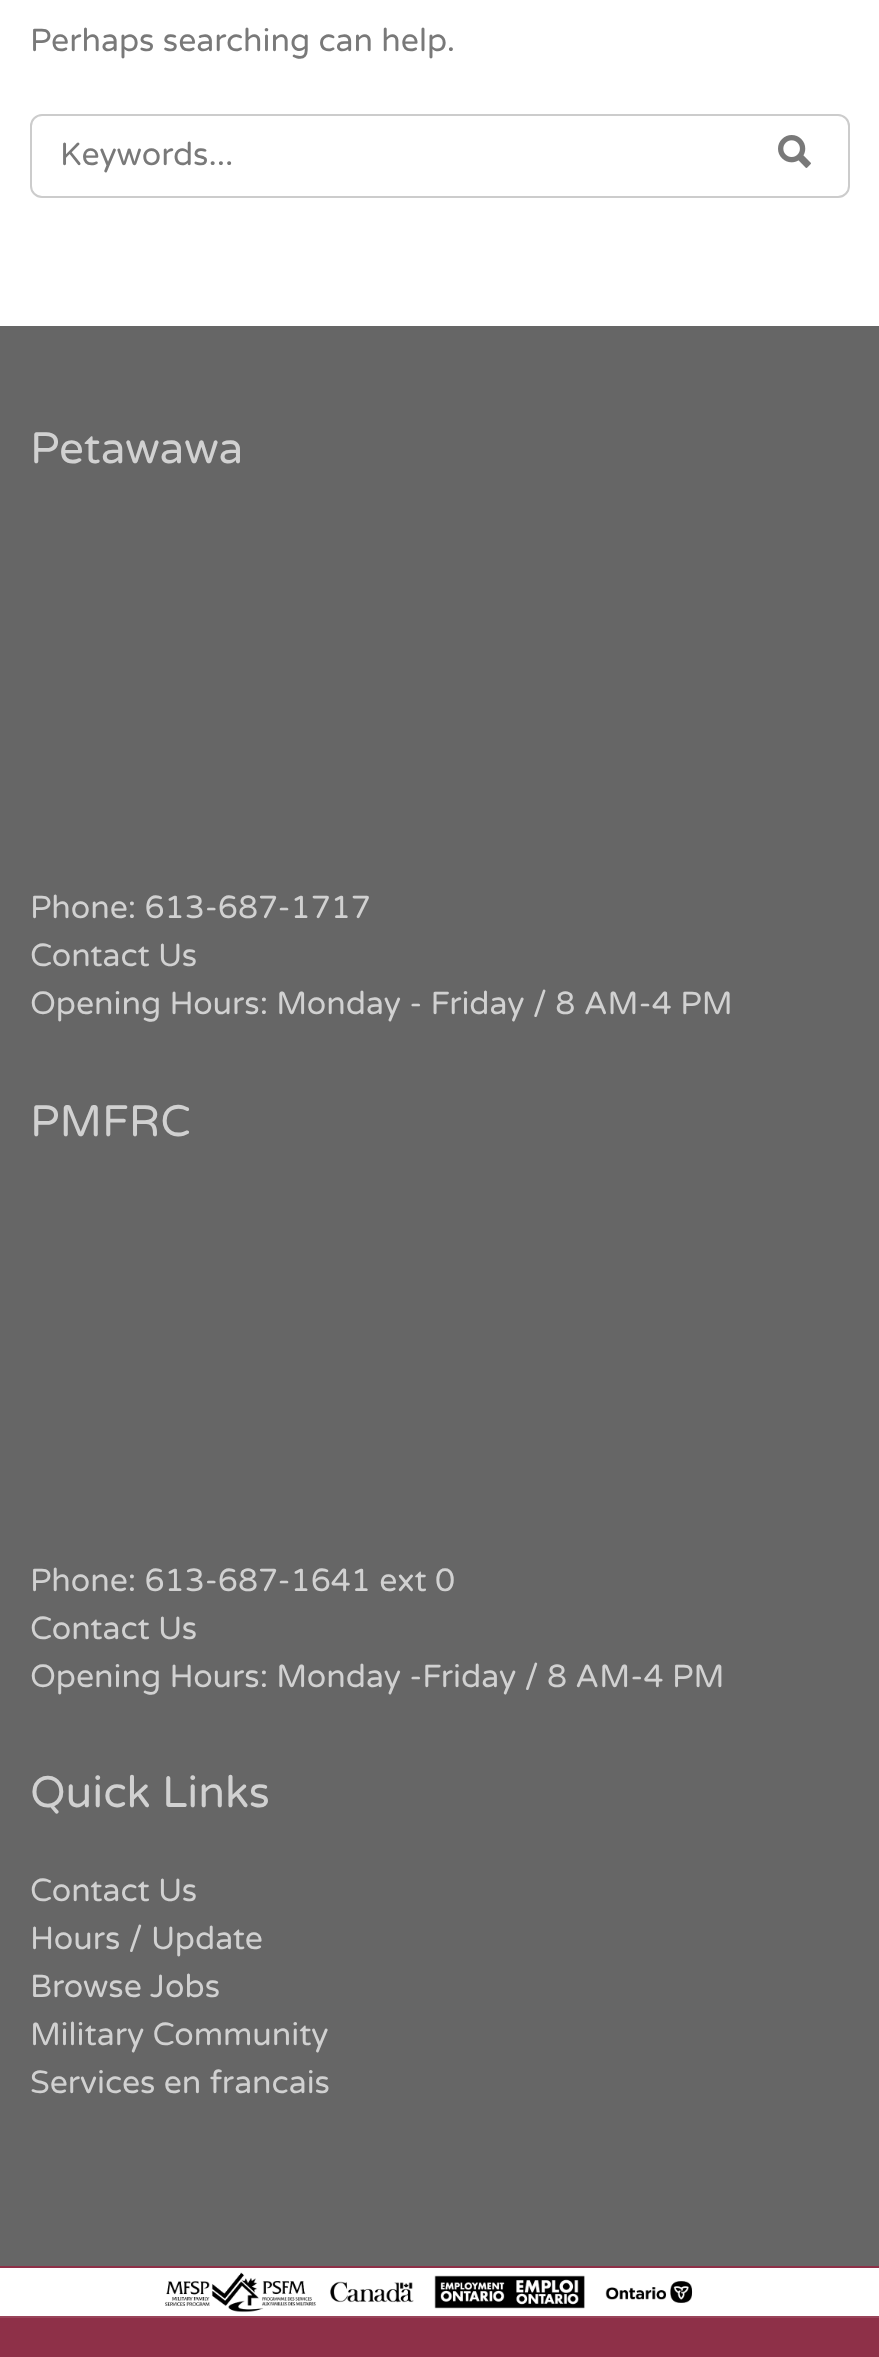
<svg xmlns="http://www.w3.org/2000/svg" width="879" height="2357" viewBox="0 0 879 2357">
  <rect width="100%" height="100%" fill="#ffffff"/>
  <text x="30" y="51" font-family="Varela Round" font-size="32" fill="#797979">Perhaps searching can help.</text>
  <rect x="31" y="115" width="818" height="82" rx="11" fill="none" stroke="#cccccc" stroke-width="2"/>
  <text x="60" y="165" font-family="Varela Round" font-size="32" fill="#797979">Keywords...</text>
  <image x="778" y="135" width="33" height="33" href="img1.png"/>
  <rect x="0" y="2266" width="879" height="91" fill="#8e3048"/>
  <rect x="0" y="326" width="879" height="1940" fill="#666666"/>
  <text x="30" y="463" font-family="Varela Round" font-size="44" fill="#d1d1d1">Petawawa</text>
  <text x="30" y="918" font-family="Varela Round" font-size="32" fill="#d1d1d1">Phone: 613-687-1717</text>
  <text x="30" y="966" font-family="Varela Round" font-size="32" fill="#d1d1d1">Contact Us</text>
  <text x="30" y="1014" font-family="Varela Round" font-size="32" fill="#d1d1d1">Opening Hours: Monday - Friday / 8 AM-4 PM</text>
  <text x="30" y="1136" font-family="Varela Round" font-size="44" fill="#d1d1d1">PMFRC</text>
  <text x="30" y="1591" font-family="Varela Round" font-size="32" fill="#d1d1d1">Phone: 613-687-1641 ext 0</text>
  <text x="30" y="1639" font-family="Varela Round" font-size="32" fill="#d1d1d1">Contact Us</text>
  <text x="30" y="1687" font-family="Varela Round" font-size="32" fill="#d1d1d1">Opening Hours: Monday -Friday / 8 AM-4 PM</text>
  <text x="30" y="1807" font-family="Varela Round" font-size="44" fill="#d1d1d1">Quick Links</text>
  <text x="30" y="1901" font-family="Varela Round" font-size="32" fill="#d1d1d1">Contact Us</text>
  <text x="30" y="1949" font-family="Varela Round" font-size="32" fill="#d1d1d1">Hours / Update</text>
  <text x="30" y="1997" font-family="Varela Round" font-size="32" fill="#d1d1d1">Browse Jobs</text>
  <text x="30" y="2045" font-family="Varela Round" font-size="32" fill="#d1d1d1">Military Community</text>
  <text x="30" y="2093" font-family="Varela Round" font-size="32" fill="#d1d1d1">Services en francais</text>
  <image x="0" y="2268" width="879" height="48" href="img2.png"/>
  <rect x="0" y="2316" width="879" height="2" fill="#99455a"/>
</svg>
